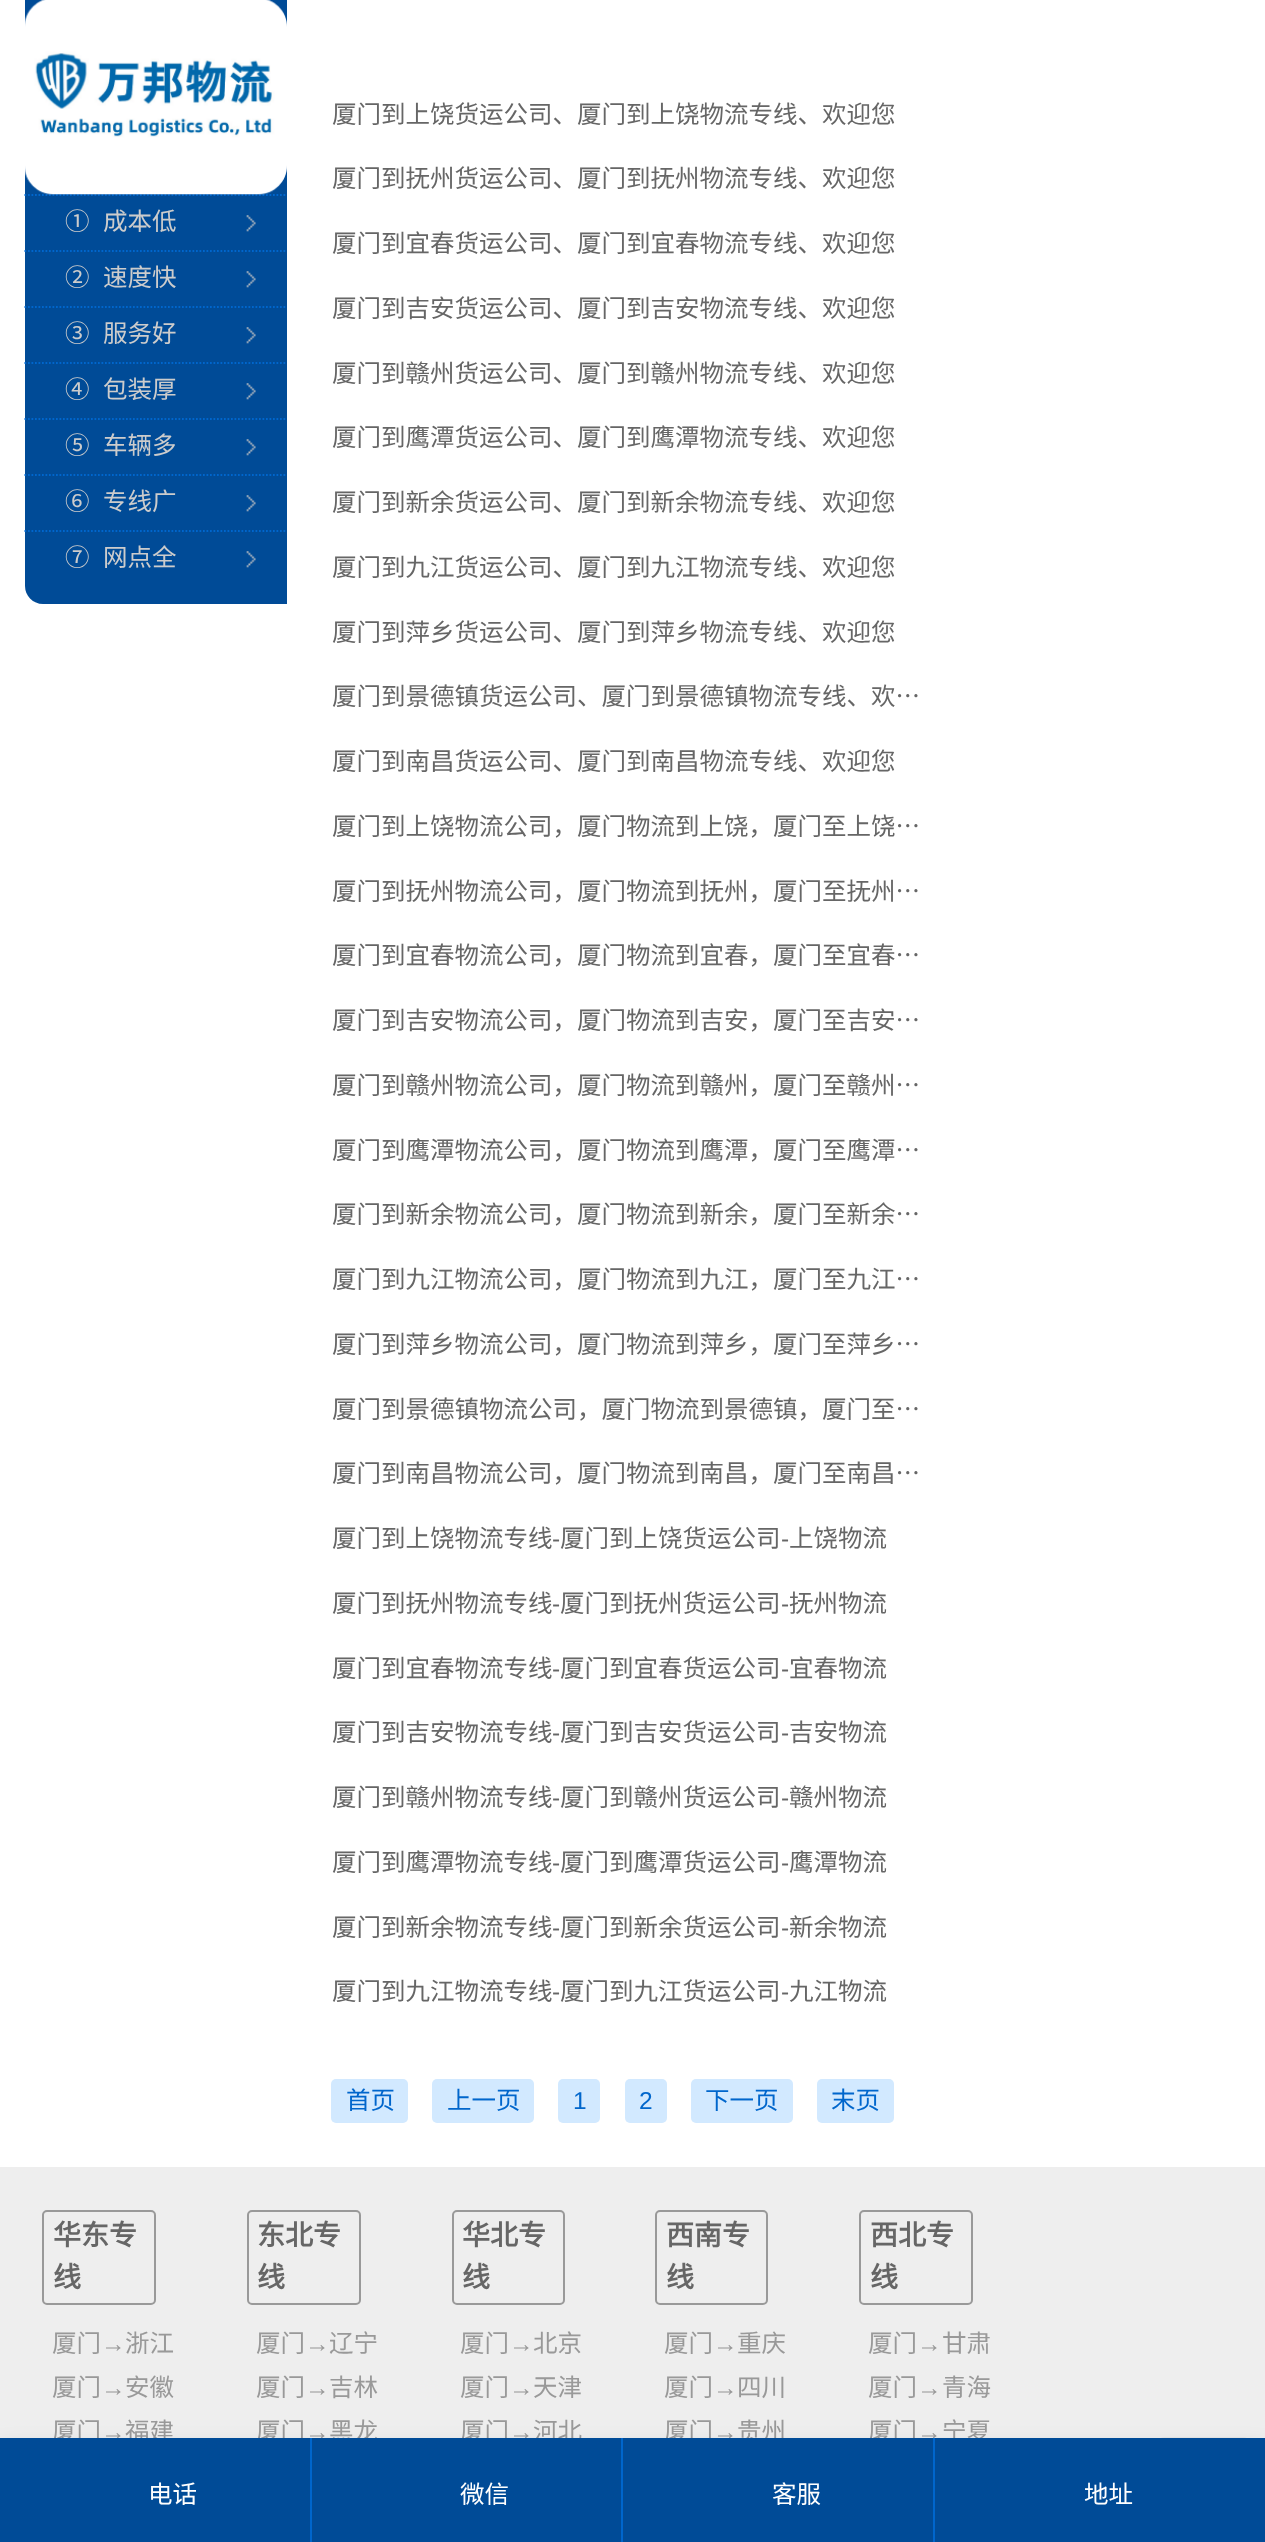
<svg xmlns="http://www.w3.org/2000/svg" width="1265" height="2542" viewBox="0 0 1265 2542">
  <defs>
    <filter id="blur1" x="-50%" y="-200%" width="200%" height="500%"><feGaussianBlur stdDeviation="10.5"/></filter>
  </defs>
  <rect width="100%" height="100%" fill="#ffffff"/>
  <path d="M25-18H269C279-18 287-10 287 0V604H43C33 604 25 596 25 586Z" fill="#004b97"/>
  <path d="M24.5 195H287" fill="none" stroke="#0066cc" stroke-width="1.8" stroke-dasharray="1.75 1.75"/>
  <image x="25" y="0" width="262" height="195" href="img1.png"/>
  <image x="246" y="215" width="10" height="17" href="img2.png"/>
  <text x="65" y="230" font-family="Noto Sans CJK SC" font-size="24.5" fill="#cccccc">①</text>
  <text x="103" y="230" font-family="Noto Sans CJK SC" font-size="24.5" fill="#cccccc">成本低</text>
  <path d="M24.5 251H287" fill="none" stroke="#0066cc" stroke-width="1.8" stroke-dasharray="1.75 1.75"/>
  <image x="246" y="271" width="10" height="17" href="img2.png"/>
  <text x="65" y="286" font-family="Noto Sans CJK SC" font-size="24.5" fill="#cccccc">②</text>
  <text x="103" y="286" font-family="Noto Sans CJK SC" font-size="24.5" fill="#cccccc">速度快</text>
  <path d="M24.5 307H287" fill="none" stroke="#0066cc" stroke-width="1.8" stroke-dasharray="1.75 1.75"/>
  <image x="246" y="327" width="10" height="17" href="img2.png"/>
  <text x="65" y="342" font-family="Noto Sans CJK SC" font-size="24.5" fill="#cccccc">③</text>
  <text x="103" y="342" font-family="Noto Sans CJK SC" font-size="24.5" fill="#cccccc">服务好</text>
  <path d="M24.5 363H287" fill="none" stroke="#0066cc" stroke-width="1.8" stroke-dasharray="1.75 1.75"/>
  <image x="246" y="383" width="10" height="17" href="img2.png"/>
  <text x="65" y="398" font-family="Noto Sans CJK SC" font-size="24.5" fill="#cccccc">④</text>
  <text x="103" y="398" font-family="Noto Sans CJK SC" font-size="24.5" fill="#cccccc">包装厚</text>
  <path d="M24.5 419H287" fill="none" stroke="#0066cc" stroke-width="1.8" stroke-dasharray="1.75 1.75"/>
  <image x="246" y="439" width="10" height="17" href="img2.png"/>
  <text x="65" y="454" font-family="Noto Sans CJK SC" font-size="24.5" fill="#cccccc">⑤</text>
  <text x="103" y="454" font-family="Noto Sans CJK SC" font-size="24.5" fill="#cccccc">车辆多</text>
  <path d="M24.5 475H287" fill="none" stroke="#0066cc" stroke-width="1.8" stroke-dasharray="1.75 1.75"/>
  <image x="246" y="495" width="10" height="17" href="img2.png"/>
  <text x="65" y="510" font-family="Noto Sans CJK SC" font-size="24.5" fill="#cccccc">⑥</text>
  <text x="103" y="510" font-family="Noto Sans CJK SC" font-size="24.5" fill="#cccccc">专线广</text>
  <path d="M24.5 531H287" fill="none" stroke="#0066cc" stroke-width="1.8" stroke-dasharray="1.75 1.75"/>
  <image x="246" y="551" width="10" height="17" href="img2.png"/>
  <text x="65" y="566" font-family="Noto Sans CJK SC" font-size="24.5" fill="#cccccc">⑦</text>
  <text x="103" y="566" font-family="Noto Sans CJK SC" font-size="24.5" fill="#cccccc">网点全</text>
  <text x="332" y="123" font-family="Noto Sans CJK SC" font-size="24.5" fill="#666666">厦门到上饶货运公司、厦门到上饶物流专线、欢迎您</text>
  <text x="332" y="187" font-family="Noto Sans CJK SC" font-size="24.5" fill="#666666">厦门到抚州货运公司、厦门到抚州物流专线、欢迎您</text>
  <text x="332" y="252" font-family="Noto Sans CJK SC" font-size="24.5" fill="#666666">厦门到宜春货运公司、厦门到宜春物流专线、欢迎您</text>
  <text x="332" y="317" font-family="Noto Sans CJK SC" font-size="24.5" fill="#666666">厦门到吉安货运公司、厦门到吉安物流专线、欢迎您</text>
  <text x="332" y="382" font-family="Noto Sans CJK SC" font-size="24.5" fill="#666666">厦门到赣州货运公司、厦门到赣州物流专线、欢迎您</text>
  <text x="332" y="446" font-family="Noto Sans CJK SC" font-size="24.5" fill="#666666">厦门到鹰潭货运公司、厦门到鹰潭物流专线、欢迎您</text>
  <text x="332" y="511" font-family="Noto Sans CJK SC" font-size="24.5" fill="#666666">厦门到新余货运公司、厦门到新余物流专线、欢迎您</text>
  <text x="332" y="576" font-family="Noto Sans CJK SC" font-size="24.5" fill="#666666">厦门到九江货运公司、厦门到九江物流专线、欢迎您</text>
  <text x="332" y="641" font-family="Noto Sans CJK SC" font-size="24.5" fill="#666666">厦门到萍乡货运公司、厦门到萍乡物流专线、欢迎您</text>
  <text x="332" y="705" font-family="Noto Sans CJK SC" font-size="24.5" fill="#666666">厦门到景德镇货运公司、厦门到景德镇物流专线、欢…</text>
  <text x="332" y="770" font-family="Noto Sans CJK SC" font-size="24.5" fill="#666666">厦门到南昌货运公司、厦门到南昌物流专线、欢迎您</text>
  <text x="332" y="835" font-family="Noto Sans CJK SC" font-size="24.5" fill="#666666">厦门到上饶物流公司，厦门物流到上饶，厦门至上饶…</text>
  <text x="332" y="900" font-family="Noto Sans CJK SC" font-size="24.5" fill="#666666">厦门到抚州物流公司，厦门物流到抚州，厦门至抚州…</text>
  <text x="332" y="964" font-family="Noto Sans CJK SC" font-size="24.5" fill="#666666">厦门到宜春物流公司，厦门物流到宜春，厦门至宜春…</text>
  <text x="332" y="1029" font-family="Noto Sans CJK SC" font-size="24.5" fill="#666666">厦门到吉安物流公司，厦门物流到吉安，厦门至吉安…</text>
  <text x="332" y="1094" font-family="Noto Sans CJK SC" font-size="24.5" fill="#666666">厦门到赣州物流公司，厦门物流到赣州，厦门至赣州…</text>
  <text x="332" y="1159" font-family="Noto Sans CJK SC" font-size="24.5" fill="#666666">厦门到鹰潭物流公司，厦门物流到鹰潭，厦门至鹰潭…</text>
  <text x="332" y="1223" font-family="Noto Sans CJK SC" font-size="24.5" fill="#666666">厦门到新余物流公司，厦门物流到新余，厦门至新余…</text>
  <text x="332" y="1288" font-family="Noto Sans CJK SC" font-size="24.5" fill="#666666">厦门到九江物流公司，厦门物流到九江，厦门至九江…</text>
  <text x="332" y="1353" font-family="Noto Sans CJK SC" font-size="24.5" fill="#666666">厦门到萍乡物流公司，厦门物流到萍乡，厦门至萍乡…</text>
  <text x="332" y="1418" font-family="Noto Sans CJK SC" font-size="24.5" fill="#666666">厦门到景德镇物流公司，厦门物流到景德镇，厦门至…</text>
  <text x="332" y="1482" font-family="Noto Sans CJK SC" font-size="24.5" fill="#666666">厦门到南昌物流公司，厦门物流到南昌，厦门至南昌…</text>
  <text x="332" y="1547" font-family="Noto Sans CJK SC" font-size="24.5" fill="#666666">厦门到上饶物流专线</text>
  <text x="552" y="1547" font-family="Liberation Sans" font-size="24.5" fill="#666666">-</text>
  <text x="560" y="1547" font-family="Noto Sans CJK SC" font-size="24.5" fill="#666666">厦门到上饶货运公司</text>
  <text x="781" y="1547" font-family="Liberation Sans" font-size="24.5" fill="#666666">-</text>
  <text x="789" y="1547" font-family="Noto Sans CJK SC" font-size="24.5" fill="#666666">上饶物流</text>
  <text x="332" y="1612" font-family="Noto Sans CJK SC" font-size="24.5" fill="#666666">厦门到抚州物流专线</text>
  <text x="552" y="1612" font-family="Liberation Sans" font-size="24.5" fill="#666666">-</text>
  <text x="560" y="1612" font-family="Noto Sans CJK SC" font-size="24.5" fill="#666666">厦门到抚州货运公司</text>
  <text x="781" y="1612" font-family="Liberation Sans" font-size="24.5" fill="#666666">-</text>
  <text x="789" y="1612" font-family="Noto Sans CJK SC" font-size="24.5" fill="#666666">抚州物流</text>
  <text x="332" y="1677" font-family="Noto Sans CJK SC" font-size="24.5" fill="#666666">厦门到宜春物流专线</text>
  <text x="552" y="1677" font-family="Liberation Sans" font-size="24.5" fill="#666666">-</text>
  <text x="560" y="1677" font-family="Noto Sans CJK SC" font-size="24.5" fill="#666666">厦门到宜春货运公司</text>
  <text x="781" y="1677" font-family="Liberation Sans" font-size="24.5" fill="#666666">-</text>
  <text x="789" y="1677" font-family="Noto Sans CJK SC" font-size="24.5" fill="#666666">宜春物流</text>
  <text x="332" y="1741" font-family="Noto Sans CJK SC" font-size="24.5" fill="#666666">厦门到吉安物流专线</text>
  <text x="552" y="1741" font-family="Liberation Sans" font-size="24.5" fill="#666666">-</text>
  <text x="560" y="1741" font-family="Noto Sans CJK SC" font-size="24.5" fill="#666666">厦门到吉安货运公司</text>
  <text x="781" y="1741" font-family="Liberation Sans" font-size="24.5" fill="#666666">-</text>
  <text x="789" y="1741" font-family="Noto Sans CJK SC" font-size="24.5" fill="#666666">吉安物流</text>
  <text x="332" y="1806" font-family="Noto Sans CJK SC" font-size="24.5" fill="#666666">厦门到赣州物流专线</text>
  <text x="552" y="1806" font-family="Liberation Sans" font-size="24.5" fill="#666666">-</text>
  <text x="560" y="1806" font-family="Noto Sans CJK SC" font-size="24.5" fill="#666666">厦门到赣州货运公司</text>
  <text x="781" y="1806" font-family="Liberation Sans" font-size="24.5" fill="#666666">-</text>
  <text x="789" y="1806" font-family="Noto Sans CJK SC" font-size="24.5" fill="#666666">赣州物流</text>
  <text x="332" y="1871" font-family="Noto Sans CJK SC" font-size="24.5" fill="#666666">厦门到鹰潭物流专线</text>
  <text x="552" y="1871" font-family="Liberation Sans" font-size="24.5" fill="#666666">-</text>
  <text x="560" y="1871" font-family="Noto Sans CJK SC" font-size="24.5" fill="#666666">厦门到鹰潭货运公司</text>
  <text x="781" y="1871" font-family="Liberation Sans" font-size="24.5" fill="#666666">-</text>
  <text x="789" y="1871" font-family="Noto Sans CJK SC" font-size="24.5" fill="#666666">鹰潭物流</text>
  <text x="332" y="1936" font-family="Noto Sans CJK SC" font-size="24.5" fill="#666666">厦门到新余物流专线</text>
  <text x="552" y="1936" font-family="Liberation Sans" font-size="24.5" fill="#666666">-</text>
  <text x="560" y="1936" font-family="Noto Sans CJK SC" font-size="24.5" fill="#666666">厦门到新余货运公司</text>
  <text x="781" y="1936" font-family="Liberation Sans" font-size="24.5" fill="#666666">-</text>
  <text x="789" y="1936" font-family="Noto Sans CJK SC" font-size="24.5" fill="#666666">新余物流</text>
  <text x="332" y="2000" font-family="Noto Sans CJK SC" font-size="24.5" fill="#666666">厦门到九江物流专线</text>
  <text x="552" y="2000" font-family="Liberation Sans" font-size="24.5" fill="#666666">-</text>
  <text x="560" y="2000" font-family="Noto Sans CJK SC" font-size="24.5" fill="#666666">厦门到九江货运公司</text>
  <text x="781" y="2000" font-family="Liberation Sans" font-size="24.5" fill="#666666">-</text>
  <text x="789" y="2000" font-family="Noto Sans CJK SC" font-size="24.5" fill="#666666">九江物流</text>
  <rect x="331" y="2079" width="77" height="44" rx="5" fill="#d2e9ff"/>
  <text x="346" y="2109" font-family="Noto Sans CJK SC" font-size="24.5" fill="#0066cc">首页</text>
  <rect x="432" y="2079" width="102" height="44" rx="5" fill="#d2e9ff"/>
  <text x="447" y="2109" font-family="Noto Sans CJK SC" font-size="24.5" fill="#0066cc">上一页</text>
  <rect x="558" y="2079" width="42" height="44" rx="5" fill="#d2e9ff"/>
  <text x="573" y="2109" font-family="Liberation Sans" font-size="24.5" fill="#0066cc">1</text>
  <rect x="625" y="2079" width="42" height="44" rx="5" fill="#d2e9ff"/>
  <text x="639" y="2109" font-family="Liberation Sans" font-size="24.5" fill="#0066cc">2</text>
  <rect x="691" y="2079" width="102" height="44" rx="5" fill="#d2e9ff"/>
  <text x="705" y="2109" font-family="Noto Sans CJK SC" font-size="24.5" fill="#0066cc">下一页</text>
  <rect x="817" y="2079" width="77" height="44" rx="5" fill="#d2e9ff"/>
  <text x="831" y="2109" font-family="Noto Sans CJK SC" font-size="24.5" fill="#0066cc">末页</text>
  <rect x="0" y="2167" width="1265" height="271" fill="#eeeeee"/>
  <rect x="43" y="2211" width="112" height="93" rx="4" fill="none" stroke="#999999" stroke-width="2"/>
  <text x="53" y="2245" font-family="Noto Sans CJK SC" font-size="28" font-weight="bold" fill="#666666">华东专</text>
  <text x="53" y="2287" font-family="Noto Sans CJK SC" font-size="28" font-weight="bold" fill="#666666">线</text>
  <text x="52" y="2352" font-family="Noto Sans CJK SC" font-size="24.5" fill="#999999">厦门</text>
  <text x="101" y="2352" font-family="Liberation Sans" font-size="24.5" fill="#999999">→</text>
  <text x="125" y="2352" font-family="Noto Sans CJK SC" font-size="24.5" fill="#999999">浙江</text>
  <text x="52" y="2396" font-family="Noto Sans CJK SC" font-size="24.5" fill="#999999">厦门</text>
  <text x="101" y="2396" font-family="Liberation Sans" font-size="24.5" fill="#999999">→</text>
  <text x="125" y="2396" font-family="Noto Sans CJK SC" font-size="24.5" fill="#999999">安徽</text>
  <text x="52" y="2440" font-family="Noto Sans CJK SC" font-size="24.5" fill="#999999">厦门</text>
  <text x="101" y="2440" font-family="Liberation Sans" font-size="24.5" fill="#999999">→</text>
  <text x="125" y="2440" font-family="Noto Sans CJK SC" font-size="24.5" fill="#999999">福建</text>
  <rect x="248" y="2211" width="112" height="93" rx="4" fill="none" stroke="#999999" stroke-width="2"/>
  <text x="257" y="2245" font-family="Noto Sans CJK SC" font-size="28" font-weight="bold" fill="#666666">东北专</text>
  <text x="257" y="2287" font-family="Noto Sans CJK SC" font-size="28" font-weight="bold" fill="#666666">线</text>
  <text x="256" y="2352" font-family="Noto Sans CJK SC" font-size="24.5" fill="#999999">厦门</text>
  <text x="305" y="2352" font-family="Liberation Sans" font-size="24.5" fill="#999999">→</text>
  <text x="329" y="2352" font-family="Noto Sans CJK SC" font-size="24.5" fill="#999999">辽宁</text>
  <text x="256" y="2396" font-family="Noto Sans CJK SC" font-size="24.5" fill="#999999">厦门</text>
  <text x="305" y="2396" font-family="Liberation Sans" font-size="24.5" fill="#999999">→</text>
  <text x="329" y="2396" font-family="Noto Sans CJK SC" font-size="24.5" fill="#999999">吉林</text>
  <text x="256" y="2440" font-family="Noto Sans CJK SC" font-size="24.5" fill="#999999">厦门</text>
  <text x="305" y="2440" font-family="Liberation Sans" font-size="24.5" fill="#999999">→</text>
  <text x="329" y="2440" font-family="Noto Sans CJK SC" font-size="24.5" fill="#999999">黑龙</text>
  <rect x="453" y="2211" width="111" height="93" rx="4" fill="none" stroke="#999999" stroke-width="2"/>
  <text x="462" y="2245" font-family="Noto Sans CJK SC" font-size="28" font-weight="bold" fill="#666666">华北专</text>
  <text x="462" y="2287" font-family="Noto Sans CJK SC" font-size="28" font-weight="bold" fill="#666666">线</text>
  <text x="460" y="2352" font-family="Noto Sans CJK SC" font-size="24.5" fill="#999999">厦门</text>
  <text x="509" y="2352" font-family="Liberation Sans" font-size="24.5" fill="#999999">→</text>
  <text x="533" y="2352" font-family="Noto Sans CJK SC" font-size="24.5" fill="#999999">北京</text>
  <text x="460" y="2396" font-family="Noto Sans CJK SC" font-size="24.5" fill="#999999">厦门</text>
  <text x="509" y="2396" font-family="Liberation Sans" font-size="24.5" fill="#999999">→</text>
  <text x="533" y="2396" font-family="Noto Sans CJK SC" font-size="24.5" fill="#999999">天津</text>
  <text x="460" y="2440" font-family="Noto Sans CJK SC" font-size="24.5" fill="#999999">厦门</text>
  <text x="509" y="2440" font-family="Liberation Sans" font-size="24.5" fill="#999999">→</text>
  <text x="533" y="2440" font-family="Noto Sans CJK SC" font-size="24.5" fill="#999999">河北</text>
  <rect x="656" y="2211" width="111" height="93" rx="4" fill="none" stroke="#999999" stroke-width="2"/>
  <text x="666" y="2245" font-family="Noto Sans CJK SC" font-size="28" font-weight="bold" fill="#666666">西南专</text>
  <text x="666" y="2287" font-family="Noto Sans CJK SC" font-size="28" font-weight="bold" fill="#666666">线</text>
  <text x="664" y="2352" font-family="Noto Sans CJK SC" font-size="24.5" fill="#999999">厦门</text>
  <text x="713" y="2352" font-family="Liberation Sans" font-size="24.5" fill="#999999">→</text>
  <text x="737" y="2352" font-family="Noto Sans CJK SC" font-size="24.5" fill="#999999">重庆</text>
  <text x="664" y="2396" font-family="Noto Sans CJK SC" font-size="24.5" fill="#999999">厦门</text>
  <text x="713" y="2396" font-family="Liberation Sans" font-size="24.5" fill="#999999">→</text>
  <text x="737" y="2396" font-family="Noto Sans CJK SC" font-size="24.5" fill="#999999">四川</text>
  <text x="664" y="2440" font-family="Noto Sans CJK SC" font-size="24.5" fill="#999999">厦门</text>
  <text x="713" y="2440" font-family="Liberation Sans" font-size="24.5" fill="#999999">→</text>
  <text x="737" y="2440" font-family="Noto Sans CJK SC" font-size="24.5" fill="#999999">贵州</text>
  <rect x="860" y="2211" width="112" height="93" rx="4" fill="none" stroke="#999999" stroke-width="2"/>
  <text x="870" y="2245" font-family="Noto Sans CJK SC" font-size="28" font-weight="bold" fill="#666666">西北专</text>
  <text x="870" y="2287" font-family="Noto Sans CJK SC" font-size="28" font-weight="bold" fill="#666666">线</text>
  <text x="868" y="2352" font-family="Noto Sans CJK SC" font-size="24.5" fill="#999999">厦门</text>
  <text x="917" y="2352" font-family="Liberation Sans" font-size="24.5" fill="#999999">→</text>
  <text x="942" y="2352" font-family="Noto Sans CJK SC" font-size="24.5" fill="#999999">甘肃</text>
  <text x="868" y="2396" font-family="Noto Sans CJK SC" font-size="24.5" fill="#999999">厦门</text>
  <text x="917" y="2396" font-family="Liberation Sans" font-size="24.5" fill="#999999">→</text>
  <text x="942" y="2396" font-family="Noto Sans CJK SC" font-size="24.5" fill="#999999">青海</text>
  <text x="868" y="2440" font-family="Noto Sans CJK SC" font-size="24.5" fill="#999999">厦门</text>
  <text x="917" y="2440" font-family="Liberation Sans" font-size="24.5" fill="#999999">→</text>
  <text x="942" y="2440" font-family="Noto Sans CJK SC" font-size="24.5" fill="#999999">宁夏</text>
  <image x="1160" y="2437" width="88" height="1" href="img3.png"/>
  <rect x="0" y="2448" width="1265" height="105" fill="#000000" fill-opacity="0.15" filter="url(#blur1)"/>
  <rect x="0" y="2438" width="1265" height="104" fill="#004b97"/>
  <rect x="310" y="2438" width="2" height="104" fill="#0066cc"/>
  <text x="148" y="2503" font-family="Noto Sans CJK SC" font-size="24.5" fill="#ffffff">电话</text>
  <rect x="621" y="2438" width="2" height="104" fill="#0066cc"/>
  <text x="460" y="2503" font-family="Noto Sans CJK SC" font-size="24.5" fill="#ffffff">微信</text>
  <rect x="933" y="2438" width="2" height="104" fill="#0066cc"/>
  <text x="772" y="2503" font-family="Noto Sans CJK SC" font-size="24.5" fill="#ffffff">客服</text>
  <text x="1084" y="2503" font-family="Noto Sans CJK SC" font-size="24.5" fill="#ffffff">地址</text>
</svg>
